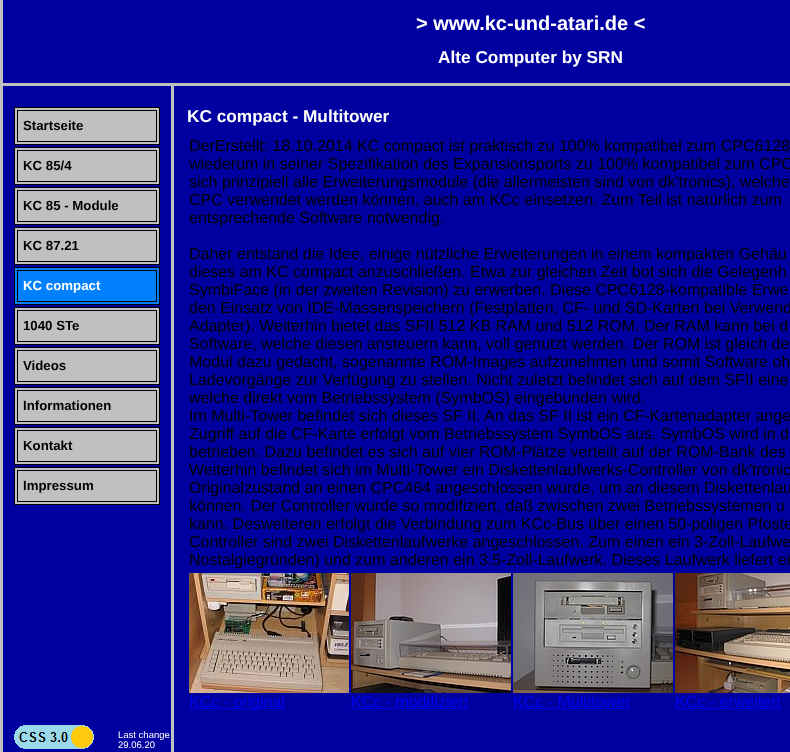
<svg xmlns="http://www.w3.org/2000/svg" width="790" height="752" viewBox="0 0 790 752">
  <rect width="100%" height="100%" fill="#0000a0"/>
  <rect x="0" y="0" width="3" height="752" fill="#c0c0c0"/>
  <rect x="3" y="83" width="787" height="3" fill="#c0c0c0"/>
  <text x="416" y="30" font-family="Liberation Sans" font-size="20" font-weight="bold" fill="#ffffff">&gt; www.kc-und-atari.de &lt;</text>
  <text x="438" y="63" font-family="Liberation Sans" font-size="17.25" font-weight="bold" fill="#ffffff">Alte Computer by SRN</text>
  <text x="187" y="122" font-family="Liberation Sans" font-size="17.25" font-weight="bold" fill="#ffffff">KC compact - Multitower</text>
  <rect x="171" y="86" width="3" height="666" fill="#c0c0c0"/>
  <rect x="14.5" y="107.5" width="145" height="37" fill="#c0c0c0" stroke="#000000"/>
  <rect x="17.5" y="110.5" width="139" height="31" fill="none" stroke="#000000"/>
  <text x="23" y="130" font-family="Liberation Sans" font-size="13.25" font-weight="bold" fill="#000000">Startseite</text>
  <rect x="14.5" y="147.5" width="145" height="37" fill="#c0c0c0" stroke="#000000"/>
  <rect x="17.5" y="150.5" width="139" height="31" fill="none" stroke="#000000"/>
  <text x="23" y="170" font-family="Liberation Sans" font-size="13.25" font-weight="bold" fill="#000000">KC 85/4</text>
  <rect x="14.5" y="187.5" width="145" height="37" fill="#c0c0c0" stroke="#000000"/>
  <rect x="17.5" y="190.5" width="139" height="31" fill="none" stroke="#000000"/>
  <text x="23" y="210" font-family="Liberation Sans" font-size="13.25" font-weight="bold" fill="#000000">KC 85 - Module</text>
  <rect x="14.5" y="227.5" width="145" height="37" fill="#c0c0c0" stroke="#000000"/>
  <rect x="17.5" y="230.5" width="139" height="31" fill="none" stroke="#000000"/>
  <text x="23" y="250" font-family="Liberation Sans" font-size="13.25" font-weight="bold" fill="#000000">KC 87.21</text>
  <rect x="14.5" y="267.5" width="145" height="37" fill="#0080ff" stroke="#000000"/>
  <rect x="17.5" y="270.5" width="139" height="31" fill="none" stroke="#000000"/>
  <text x="23" y="290" font-family="Liberation Sans" font-size="13.25" font-weight="bold" fill="#ffffff">KC compact</text>
  <rect x="14.5" y="307.5" width="145" height="37" fill="#c0c0c0" stroke="#000000"/>
  <rect x="17.5" y="310.5" width="139" height="31" fill="none" stroke="#000000"/>
  <text x="23" y="330" font-family="Liberation Sans" font-size="13.25" font-weight="bold" fill="#000000">1040 STe</text>
  <rect x="14.5" y="347.5" width="145" height="37" fill="#c0c0c0" stroke="#000000"/>
  <rect x="17.5" y="350.5" width="139" height="31" fill="none" stroke="#000000"/>
  <text x="23" y="370" font-family="Liberation Sans" font-size="13.25" font-weight="bold" fill="#000000">Videos</text>
  <rect x="14.5" y="387.5" width="145" height="37" fill="#c0c0c0" stroke="#000000"/>
  <rect x="17.5" y="390.5" width="139" height="31" fill="none" stroke="#000000"/>
  <text x="23" y="410" font-family="Liberation Sans" font-size="13.25" font-weight="bold" fill="#000000">Informationen</text>
  <rect x="14.5" y="427.5" width="145" height="37" fill="#c0c0c0" stroke="#000000"/>
  <rect x="17.5" y="430.5" width="139" height="31" fill="none" stroke="#000000"/>
  <text x="23" y="450" font-family="Liberation Sans" font-size="13.25" font-weight="bold" fill="#000000">Kontakt</text>
  <rect x="14.5" y="467.5" width="145" height="37" fill="#c0c0c0" stroke="#000000"/>
  <rect x="17.5" y="470.5" width="139" height="31" fill="none" stroke="#000000"/>
  <text x="23" y="490" font-family="Liberation Sans" font-size="13.25" font-weight="bold" fill="#000000">Impressum</text>
  <image x="14" y="725" width="80" height="24" href="img1.png"/>
  <text x="118" y="738" font-family="Liberation Sans" font-size="9.5" fill="#ffffff">Last change</text>
  <text x="118" y="748" font-family="Liberation Sans" font-size="9.5" fill="#ffffff">29.06.20</text>
  <text x="189" y="151" font-family="Liberation Sans" font-size="16" fill="#000000">DerErstellt: 18.10.2014 KC compact ist praktisch zu 100% kompatibel zum CPC6128</text>
  <text x="189" y="169" font-family="Liberation Sans" font-size="16" fill="#000000">wiederum in seiner Spezifikation des Expansionsports zu 100% kompatibel zum CPC</text>
  <text x="189" y="187" font-family="Liberation Sans" font-size="16" fill="#000000">sich prinzipiell alle Erweiterungsmodule (die allermeisten sind von dk'tronics), welche</text>
  <text x="189" y="205" font-family="Liberation Sans" font-size="16" fill="#000000">CPC verwendet werden können, auch am KCc einsetzen. Zum Teil ist natürlich zum</text>
  <text x="189" y="223" font-family="Liberation Sans" font-size="16" fill="#000000">entsprechende Software notwendig.</text>
  <text x="189" y="259" font-family="Liberation Sans" font-size="16" fill="#000000">Daher entstand die Idee, einige nützliche Erweiterungen in einem kompakten Gehäu</text>
  <text x="189" y="277" font-family="Liberation Sans" font-size="16" fill="#000000">dieses am KC compact anzuschließen. Etwa zur gleichen Zeit bot sich die Gelegenh</text>
  <text x="189" y="295" font-family="Liberation Sans" font-size="16" fill="#000000">SymbiFace (in der zweiten Revision) zu erwerben. Diese CPC6128-kompatible Erwe</text>
  <text x="189" y="313" font-family="Liberation Sans" font-size="16" fill="#000000">den Einsatz von IDE-Massenspeichern (Festplatten, CF- und SD-Karten bei Verwend</text>
  <text x="189" y="331" font-family="Liberation Sans" font-size="16" fill="#000000">Adapter). Weiterhin bietet das SFII 512 KB RAM und 512 ROM. Der RAM kann bei d</text>
  <text x="189" y="349" font-family="Liberation Sans" font-size="16" fill="#000000">Software, welche diesen ansteuern kann, voll genutzt werden. Der ROM ist gleich de</text>
  <text x="189" y="367" font-family="Liberation Sans" font-size="16" fill="#000000">Modul dazu gedacht, sogenannte ROM-Images aufzunehmen und somit Software oh</text>
  <text x="189" y="385" font-family="Liberation Sans" font-size="16" fill="#000000">Ladevorgänge zur Verfügung zu stellen. Nicht zuletzt befindet sich auf dem SFII eine</text>
  <text x="189" y="403" font-family="Liberation Sans" font-size="16" fill="#000000">welche direkt vom Betriebssystem (SymbOS) eingebunden wird.</text>
  <text x="189" y="421" font-family="Liberation Sans" font-size="16" fill="#000000">Im Multi-Tower befindet sich dieses SF II. An das SF II ist ein CF-Kartenadapter ange</text>
  <text x="189" y="439" font-family="Liberation Sans" font-size="16" fill="#000000">Zugriff auf die CF-Karte erfolgt vom Betriebssystem SymbOS aus. SymbOS wird in d</text>
  <text x="189" y="457" font-family="Liberation Sans" font-size="16" fill="#000000">betrieben. Dazu befindet es sich auf vier ROM-Plätze verteilt auf der ROM-Bank des</text>
  <text x="189" y="475" font-family="Liberation Sans" font-size="16" fill="#000000">Weiterhin befindet sich im Multi-Tower ein Diskettenlaufwerks-Controller von dk'tronic</text>
  <text x="189" y="493" font-family="Liberation Sans" font-size="16" fill="#000000">Originalzustand an einen CPC464 angeschlossen wurde, um an diesem Diskettenlau</text>
  <text x="189" y="511" font-family="Liberation Sans" font-size="16" fill="#000000">können. Der Controller wurde so modifiziert, daß zwischen zwei Betriebssystemen u</text>
  <text x="189" y="529" font-family="Liberation Sans" font-size="16" fill="#000000">kann. Desweiteren erfolgt die Verbindung zum KCc-Bus über einen 50-poligen Pfoste</text>
  <text x="189" y="547" font-family="Liberation Sans" font-size="16" fill="#000000">Controller sind zwei Diskettenlaufwerke angeschlossen. Zum einen ein 3-Zoll-Laufwe</text>
  <text x="189" y="565" font-family="Liberation Sans" font-size="16" fill="#000000">Nostalgiegründen) und zum anderen ein 3.5-Zoll-Laufwerk. Dieses Laufwerk liefert ei</text>
  <image x="189" y="573" width="160" height="120" href="img2.png"/>
  <rect x="189" y="708" width="96" height="1" fill="#0000ee"/>
  <text x="189" y="707" font-family="Liberation Sans" font-size="16" fill="#0000ee">KCc - original</text>
  <image x="351" y="573" width="160" height="120" href="img3.png"/>
  <text x="351" y="707" font-family="Liberation Sans" font-size="16" fill="#0000ee">KCc - modifiziert</text>
  <rect x="351" y="708" width="117" height="1" fill="#0000ee"/>
  <image x="513" y="573" width="160" height="120" href="img4.png"/>
  <text x="513" y="707" font-family="Liberation Sans" font-size="16" fill="#0000ee">KCc - Multitower</text>
  <rect x="513" y="708" width="117" height="1" fill="#0000ee"/>
  <image x="675" y="573" width="115" height="120" href="img5.png"/>
  <text x="675" y="707" font-family="Liberation Sans" font-size="16" fill="#0000ee">KCc - erweitert</text>
  <rect x="675" y="708" width="106" height="1" fill="#0000ee"/>
</svg>
